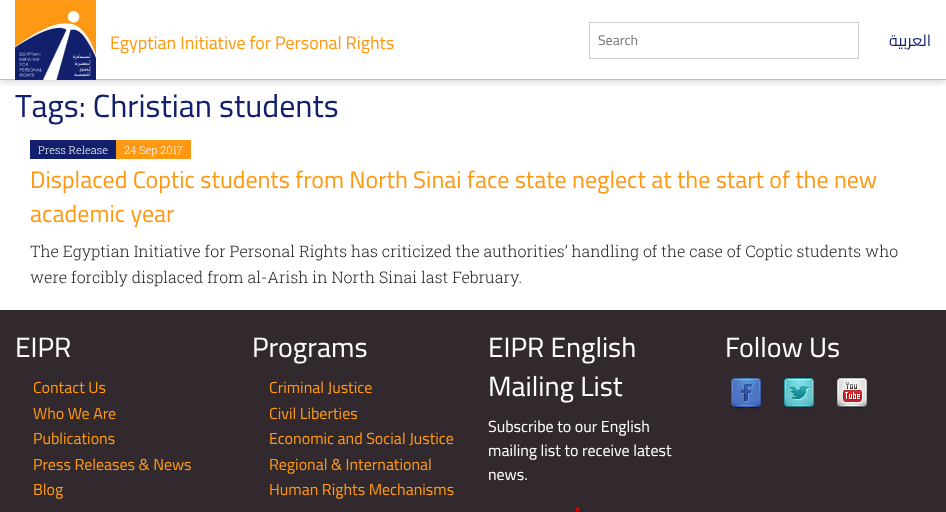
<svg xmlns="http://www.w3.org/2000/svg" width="946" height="512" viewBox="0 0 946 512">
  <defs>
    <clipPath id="clip1"><rect x="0" y="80" width="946" height="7"/></clipPath>
    <filter id="blur1" x="-50%" y="-200%" width="200%" height="500%"><feGaussianBlur stdDeviation="5"/></filter>
  </defs>
  <rect width="100%" height="100%" fill="#ffffff"/>
  <g clip-path="url(#clip1)">
    <rect x="0" y="0" width="946" height="80" fill="#000000" fill-opacity="0.25" filter="url(#blur1)"/>
  </g>
  <rect x="0" y="79" width="946" height="1" fill="#bfbfbf"/>
  <image x="15" y="0" width="81" height="80" href="img1.png"/>
  <text x="110" y="49" font-family="Cairo" font-size="18" fill="#ff9913">Egyptian Initiative for Personal Rights</text>
  <rect x="589.5" y="22.5" width="269" height="36" fill="none" stroke="#cccccc"/>
  <text x="598" y="45" font-family="Cairo" font-size="14" fill="#757575">Search</text>
  <text x="931" y="46" font-family="Cairo" font-size="16" direction="rtl" fill="#111f6d">العربية</text>
  <text x="15" y="117" font-family="Cairo" font-size="32" fill="#111f6d">Tags: Christian students</text>
  <rect x="30" y="140" width="86" height="19" fill="#111f6d"/>
  <text x="38" y="154" font-family="Roboto Slab" font-size="11" font-weight="300" fill="#ffffff">Press Release</text>
  <rect x="116" y="140" width="75" height="19" fill="#ff9913"/>
  <text x="124" y="154" font-family="Roboto Slab" font-size="11" font-weight="300" fill="#ffffff">24 Sep 2017</text>
  <text x="30" y="188" font-family="Cairo" font-size="24" fill="#ff9913">Displaced Coptic students from North Sinai face state neglect at the start of the new</text>
  <text x="30" y="222" font-family="Cairo" font-size="24" fill="#ff9913">academic year</text>
  <text x="30" y="257" font-family="Roboto Slab" font-size="16" font-weight="300" fill="#222222">The Egyptian Initiative for Personal Rights has criticized the authorities’ handling of the case of Coptic students who</text>
  <text x="30" y="283" font-family="Roboto Slab" font-size="16" font-weight="300" fill="#222222">were forcibly displaced from al-Arish in North Sinai last February.</text>
  <rect x="0" y="310" width="946" height="202" fill="#32292f"/>
  <text x="15" y="357" font-family="Cairo" font-size="28" fill="#ffffff">EIPR</text>
  <text x="33" y="393" font-family="Cairo" font-size="16" fill="#ff9913">Contact Us</text>
  <text x="33" y="419" font-family="Cairo" font-size="16" fill="#ff9913">Who We Are</text>
  <text x="33" y="444" font-family="Cairo" font-size="16" fill="#ff9913">Publications</text>
  <text x="33" y="470" font-family="Cairo" font-size="16" fill="#ff9913">Press Releases &amp; News</text>
  <text x="33" y="495" font-family="Cairo" font-size="16" fill="#ff9913">Blog</text>
  <text x="252" y="357" font-family="Cairo" font-size="28" fill="#ffffff">Programs</text>
  <text x="269" y="393" font-family="Cairo" font-size="16" fill="#ff9913">Criminal Justice</text>
  <text x="269" y="419" font-family="Cairo" font-size="16" fill="#ff9913">Civil Liberties</text>
  <text x="269" y="444" font-family="Cairo" font-size="16" fill="#ff9913">Economic and Social Justice</text>
  <text x="269" y="470" font-family="Cairo" font-size="16" fill="#ff9913">Regional &amp; International</text>
  <text x="269" y="495" font-family="Cairo" font-size="16" fill="#ff9913">Human Rights Mechanisms</text>
  <text x="488" y="357" font-family="Cairo" font-size="28" fill="#ffffff">EIPR English</text>
  <text x="488" y="396" font-family="Cairo" font-size="28" fill="#ffffff">Mailing List</text>
  <text x="488" y="432" font-family="Cairo" font-size="16" fill="#ffffff">Subscribe to our English</text>
  <text x="488" y="456" font-family="Cairo" font-size="16" fill="#ffffff">mailing list to receive latest</text>
  <text x="488" y="480" font-family="Cairo" font-size="16" fill="#ffffff">news.</text>
  <text x="575" y="517" font-family="Cairo" font-size="14" fill="#ff0000">*</text>
  <text x="725" y="357" font-family="Cairo" font-size="28" fill="#ffffff">Follow Us</text>
  <image x="731" y="378" width="30" height="31" href="img2.png"/>
  <image x="784" y="378" width="30" height="31" href="img3.png"/>
  <image x="837" y="378" width="30" height="31" href="img4.png"/>
</svg>
